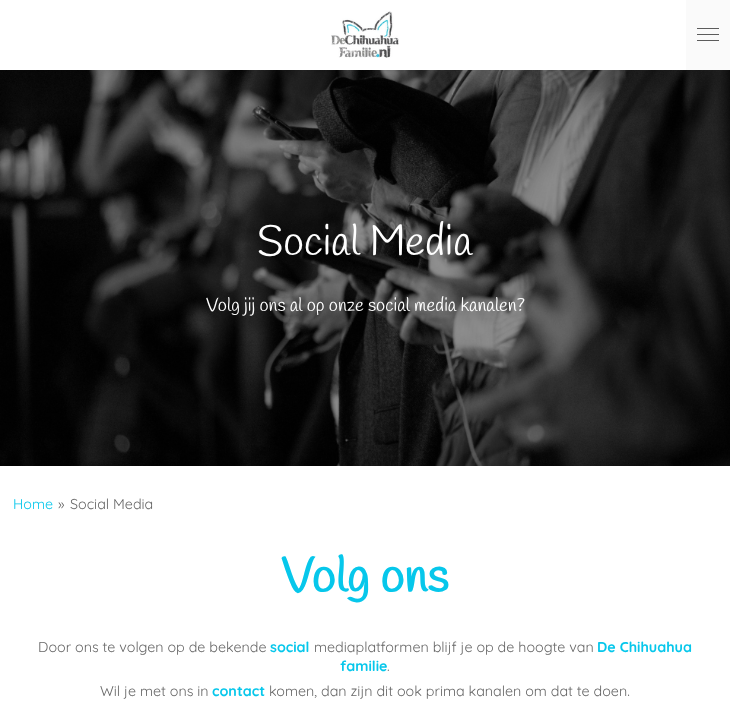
<svg xmlns="http://www.w3.org/2000/svg" width="730" height="708" viewBox="0 0 730 708">
  <rect width="100%" height="100%" fill="#ffffff"/>
  <image x="331" y="11" width="68" height="47" href="img1.png"/>
  <rect x="686" y="0" width="44" height="70" fill="#fafafa"/>
  <rect x="697" y="34" width="22" height="1" fill="#5c5c5c"/>
  <rect x="697" y="28" width="22" height="1" fill="#5c5c5c"/>
  <rect x="697" y="40" width="22" height="1" fill="#5c5c5c"/>
  <image x="0" y="70" width="730" height="396" href="img2.png"/>
  <text x="257" y="255" font-family="Handlee" font-size="42" fill="#ffffff">Social Media</text>
  <text x="206" y="311" font-family="Handlee" font-size="18.6" fill="#ffffff">Volg jij ons al op onze social media kanalen?</text>
  <text x="13" y="509" font-family="Quicksand" font-size="14.3" fill="#06c7eb">Home</text>
  <text x="58" y="509" font-family="Quicksand" font-size="14.3" fill="#676767">»</text>
  <text x="70" y="509" font-family="Quicksand" font-size="14.3" fill="#676767">Social Media</text>
  <text x="281" y="592" font-family="Handlee" font-size="48.5" font-weight="bold" fill="#06c7eb">Volg ons</text>
  <text x="38" y="652" font-family="Quicksand" font-size="14.3" fill="#676767">Door ons te volgen op de bekende</text>
  <text x="270" y="652" font-family="Quicksand" font-size="14.3" font-weight="bold" fill="#06c7eb">social</text>
  <text x="314" y="652" font-family="Quicksand" font-size="14.3" fill="#676767">mediaplatformen blijf je op de hoogte van</text>
  <text x="597" y="652" font-family="Quicksand" font-size="14.3" font-weight="bold" fill="#06c7eb">De Chihuahua</text>
  <text x="340" y="671" font-family="Quicksand" font-size="14.3" font-weight="bold" fill="#06c7eb">familie</text>
  <text x="387" y="671" font-family="Quicksand" font-size="14.3" fill="#676767">.</text>
  <text x="100" y="696" font-family="Quicksand" font-size="14.3" fill="#676767">Wil je met ons in</text>
  <text x="212" y="696" font-family="Quicksand" font-size="14.3" font-weight="bold" fill="#06c7eb">contact</text>
  <text x="269" y="696" font-family="Quicksand" font-size="14.3" fill="#676767">komen, dan zijn dit ook prima kanalen om dat te doen.</text>
</svg>
